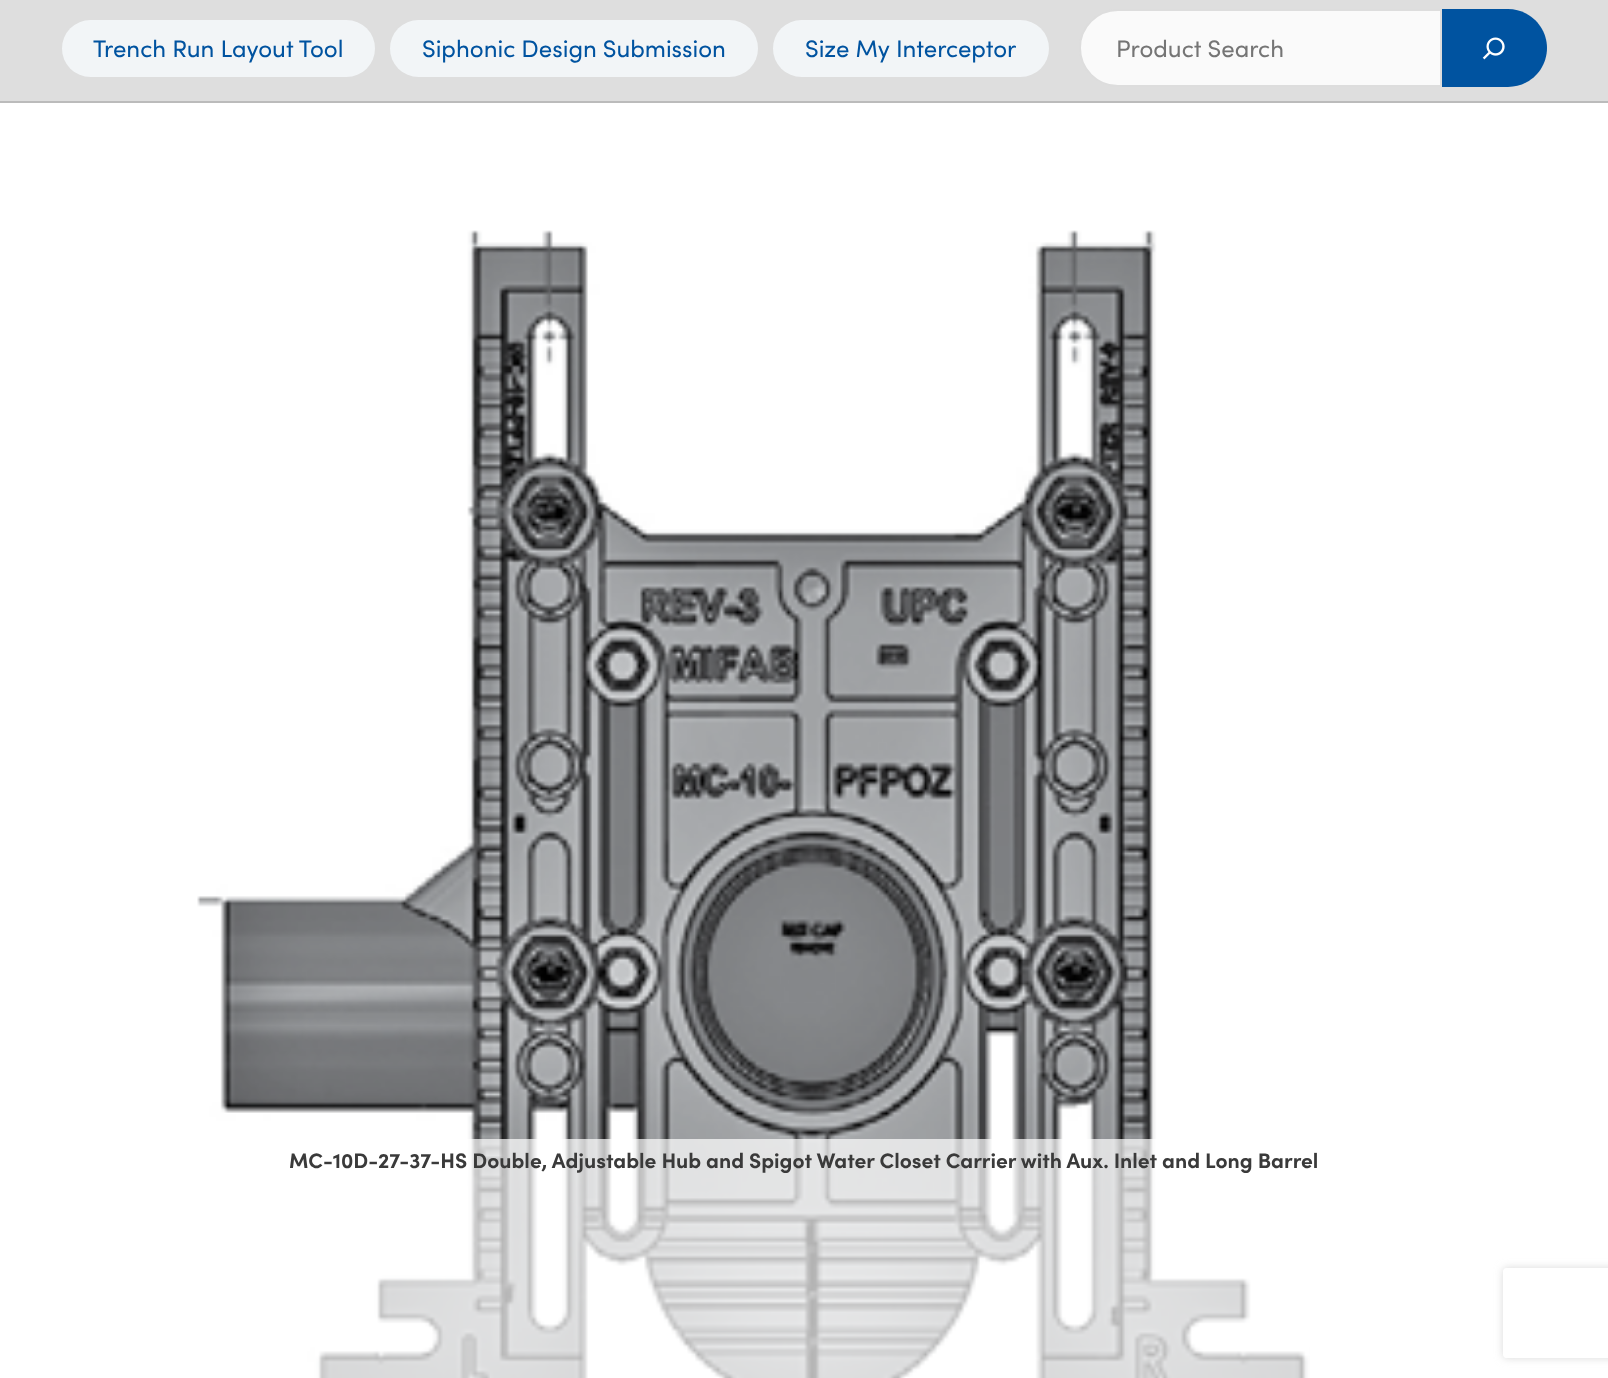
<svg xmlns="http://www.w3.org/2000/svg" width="1608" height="1378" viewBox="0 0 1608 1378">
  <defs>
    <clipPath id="clip1"><path d="M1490 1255H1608V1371H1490ZM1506 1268H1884C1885.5 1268 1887 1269.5 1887 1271V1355C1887 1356.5 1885.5 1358 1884 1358H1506C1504.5 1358 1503 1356.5 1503 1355V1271C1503 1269.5 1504.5 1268 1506 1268Z" clip-rule="evenodd"/></clipPath>
    <filter id="blur1" x="-50%" y="-200%" width="200%" height="500%"><feGaussianBlur stdDeviation="4"/></filter>
  </defs>
  <rect width="100%" height="100%" fill="#ffffff"/>
  <rect x="0" y="0" width="1608" height="101" fill="#dedede"/>
  <rect x="0" y="101" width="1608" height="2" fill="#bbbbbb"/>
  <rect x="62" y="20" width="313" height="57" rx="28.5" fill="#f2f5f7"/>
  <text x="93" y="57" font-family="Sofia" font-size="24" fill="#0053a0">Trench Run Layout Tool</text>
  <rect x="390" y="20" width="368" height="57" rx="28.5" fill="#f2f5f7"/>
  <text x="422" y="57" font-family="Sofia" font-size="24" fill="#0053a0">Siphonic Design Submission</text>
  <rect x="773" y="20" width="276" height="57" rx="28.5" fill="#f2f5f7"/>
  <text x="805" y="57" font-family="Sofia" font-size="24" fill="#0053a0">Size My Interceptor</text>
  <path d="M1118 10H1441V86H1118C1097 86 1080 69 1080 48C1080 27 1097 10 1118 10Z" fill="#fafafa" stroke="#dddddd" stroke-width="2"/>
  <text x="1116" y="57" font-family="Sofia" font-size="24" fill="#757575">Product Search</text>
  <path d="M1442 9H1508C1529.5 9 1547 26.5 1547 48C1547 69.5 1529.5 87 1508 87H1442Z" fill="#0053a0"/>
  <image x="1482" y="37" width="23" height="23" href="img1.png"/>
  <image x="32" y="208" width="1522" height="1170" href="img2.png"/>
  <rect x="495" y="1139" width="1042" height="154" fill="#ffffff" fill-opacity="0.7"/>
  <rect x="496" y="1139" width="1041" height="154" fill="#ffffff" fill-opacity="0.7"/>
  <image x="71" y="464" width="1466" height="914" href="img3.png"/>
  <rect x="99" y="1139" width="607" height="239" fill="#ffffff" fill-opacity="0.7"/>
  <image x="99" y="230" width="1387" height="1148" href="img4.png"/>
  <rect x="315" y="1139" width="994" height="239" fill="#ffffff" fill-opacity="0.7"/>
  <text x="289" y="1168" font-family="Sofia" font-size="21" font-weight="bold" fill="#3a3a3a">MC-10D-27-37-HS Double, Adjustable Hub and Spigot Water Closet Carrier with Aux. Inlet and Long Barrel</text>
  <g clip-path="url(#clip1)">
    <rect x="1503" y="1268" width="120" height="90" rx="3" fill="#d9d9d9" filter="url(#blur1)"/>
  </g>
</svg>
